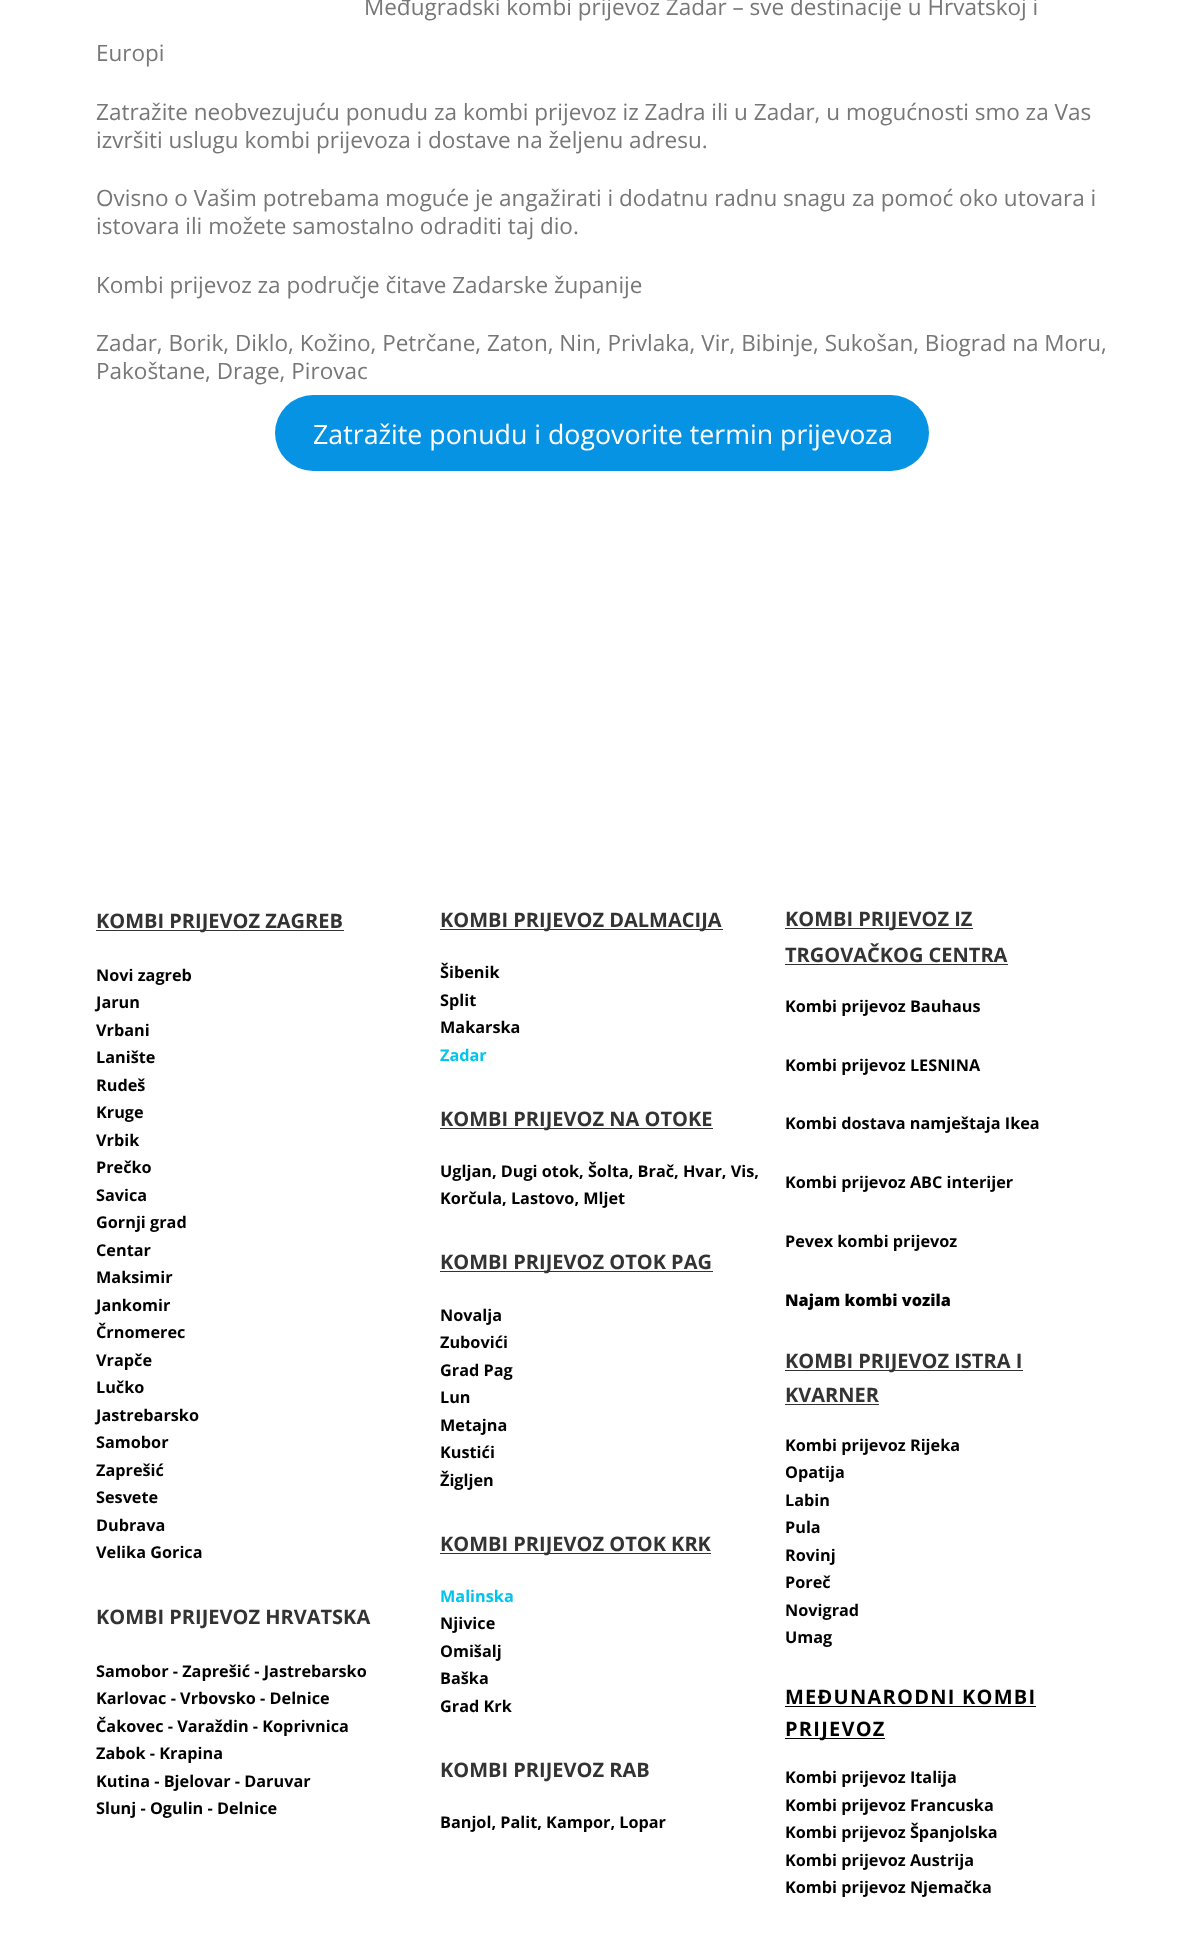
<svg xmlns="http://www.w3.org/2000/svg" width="1203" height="1945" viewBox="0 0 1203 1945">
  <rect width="100%" height="100%" fill="#ffffff"/>
  <text x="364" y="15" font-family="Open Sans" font-size="22.5" fill="#777777">Međugradski kombi prijevoz Zadar – sve destinacije u Hrvatskoj i</text>
  <text x="96" y="61" font-family="Open Sans" font-size="22.5" fill="#777777">Europi</text>
  <text x="96" y="120" font-family="Open Sans" font-size="22.5" fill="#777777">Zatražite neobvezujuću ponudu za kombi prijevoz iz Zadra ili u Zadar, u mogućnosti smo za Vas</text>
  <text x="96" y="148" font-family="Open Sans" font-size="22.5" fill="#777777">izvršiti uslugu kombi prijevoza i dostave na željenu adresu.</text>
  <text x="96" y="206" font-family="Open Sans" font-size="22.5" fill="#777777">Ovisno o Vašim potrebama moguće je angažirati i dodatnu radnu snagu za pomoć oko utovara i</text>
  <text x="96" y="234" font-family="Open Sans" font-size="22.5" fill="#777777">istovara ili možete samostalno odraditi taj dio.</text>
  <text x="96" y="293" font-family="Open Sans" font-size="22.5" fill="#777777">Kombi prijevoz za područje čitave Zadarske županije</text>
  <text x="96" y="351" font-family="Open Sans" font-size="22.5" fill="#777777">Zadar, Borik, Diklo, Kožino, Petrčane, Zaton, Nin, Privlaka, Vir, Bibinje, Sukošan, Biograd na Moru,</text>
  <text x="96" y="379" font-family="Open Sans" font-size="22.5" fill="#777777">Pakoštane, Drage, Pirovac</text>
  <rect x="275" y="395" width="654" height="76" rx="38" fill="#0693e3"/>
  <text x="313" y="444" font-family="Open Sans" font-size="26.75" fill="#ffffff">Zatražite ponudu i dogovorite termin prijevoza</text>
  <rect x="96" y="930" width="248" height="1" fill="#333333"/>
  <text x="96" y="928" font-family="Open Sans" font-size="20" font-weight="bold" fill="#333333">KOMBI PRIJEVOZ ZAGREB</text>
  <text x="96" y="981" font-family="Open Sans" font-size="16.25" font-weight="bold" fill="#000000">Novi zagreb</text>
  <text x="96" y="1008" font-family="Open Sans" font-size="16.25" font-weight="bold" fill="#000000">Jarun</text>
  <text x="96" y="1036" font-family="Open Sans" font-size="16.25" font-weight="bold" fill="#000000">Vrbani</text>
  <text x="96" y="1063" font-family="Open Sans" font-size="16.25" font-weight="bold" fill="#000000">Lanište</text>
  <text x="96" y="1091" font-family="Open Sans" font-size="16.25" font-weight="bold" fill="#000000">Rudeš</text>
  <text x="96" y="1118" font-family="Open Sans" font-size="16.25" font-weight="bold" fill="#000000">Kruge</text>
  <text x="96" y="1146" font-family="Open Sans" font-size="16.25" font-weight="bold" fill="#000000">Vrbik</text>
  <text x="96" y="1173" font-family="Open Sans" font-size="16.25" font-weight="bold" fill="#000000">Prečko</text>
  <text x="96" y="1201" font-family="Open Sans" font-size="16.25" font-weight="bold" fill="#000000">Savica</text>
  <text x="96" y="1228" font-family="Open Sans" font-size="16.25" font-weight="bold" fill="#000000">Gornji grad</text>
  <text x="96" y="1256" font-family="Open Sans" font-size="16.25" font-weight="bold" fill="#000000">Centar</text>
  <text x="96" y="1283" font-family="Open Sans" font-size="16.25" font-weight="bold" fill="#000000">Maksimir</text>
  <text x="96" y="1311" font-family="Open Sans" font-size="16.25" font-weight="bold" fill="#000000">Jankomir</text>
  <text x="96" y="1338" font-family="Open Sans" font-size="16.25" font-weight="bold" fill="#000000">Črnomerec</text>
  <text x="96" y="1366" font-family="Open Sans" font-size="16.25" font-weight="bold" fill="#000000">Vrapče</text>
  <text x="96" y="1393" font-family="Open Sans" font-size="16.25" font-weight="bold" fill="#000000">Lučko</text>
  <text x="96" y="1421" font-family="Open Sans" font-size="16.25" font-weight="bold" fill="#000000">Jastrebarsko</text>
  <text x="96" y="1448" font-family="Open Sans" font-size="16.25" font-weight="bold" fill="#000000">Samobor</text>
  <text x="96" y="1476" font-family="Open Sans" font-size="16.25" font-weight="bold" fill="#000000">Zaprešić</text>
  <text x="96" y="1503" font-family="Open Sans" font-size="16.25" font-weight="bold" fill="#000000">Sesvete</text>
  <text x="96" y="1531" font-family="Open Sans" font-size="16.25" font-weight="bold" fill="#000000">Dubrava</text>
  <text x="96" y="1558" font-family="Open Sans" font-size="16.25" font-weight="bold" fill="#000000">Velika Gorica</text>
  <text x="96" y="1624" font-family="Open Sans" font-size="20" font-weight="bold" fill="#333333">KOMBI PRIJEVOZ HRVATSKA</text>
  <text x="96" y="1677" font-family="Open Sans" font-size="16.25" font-weight="bold" fill="#000000">Samobor - Zaprešić - Jastrebarsko</text>
  <text x="96" y="1704" font-family="Open Sans" font-size="16.25" font-weight="bold" fill="#000000">Karlovac - Vrbovsko - Delnice</text>
  <text x="96" y="1732" font-family="Open Sans" font-size="16.25" font-weight="bold" fill="#000000">Čakovec - Varaždin - Koprivnica</text>
  <text x="96" y="1759" font-family="Open Sans" font-size="16.25" font-weight="bold" fill="#000000">Zabok - Krapina</text>
  <text x="96" y="1787" font-family="Open Sans" font-size="16.25" font-weight="bold" fill="#000000">Kutina - Bjelovar - Daruvar</text>
  <text x="96" y="1814" font-family="Open Sans" font-size="16.25" font-weight="bold" fill="#000000">Slunj - Ogulin - Delnice</text>
  <rect x="440" y="929" width="283" height="1" fill="#333333"/>
  <text x="440" y="927" font-family="Open Sans" font-size="20" font-weight="bold" fill="#333333">KOMBI PRIJEVOZ DALMACIJA</text>
  <text x="440" y="978" font-family="Open Sans" font-size="16.25" font-weight="bold" fill="#000000">Šibenik</text>
  <text x="440" y="1006" font-family="Open Sans" font-size="16.25" font-weight="bold" fill="#000000">Split</text>
  <text x="440" y="1033" font-family="Open Sans" font-size="16.25" font-weight="bold" fill="#000000">Makarska</text>
  <text x="440" y="1061" font-family="Open Sans" font-size="16.25" font-weight="bold" fill="#03c4eb">Zadar</text>
  <rect x="440" y="1128" width="273" height="1" fill="#333333"/>
  <text x="440" y="1126" font-family="Open Sans" font-size="20" font-weight="bold" fill="#333333">KOMBI PRIJEVOZ NA OTOKE</text>
  <text x="440" y="1177" font-family="Open Sans" font-size="16.25" font-weight="bold" fill="#000000">Ugljan, Dugi otok, Šolta, Brač, Hvar, Vis,</text>
  <text x="440" y="1204" font-family="Open Sans" font-size="16.25" font-weight="bold" fill="#000000">Korčula, Lastovo, Mljet</text>
  <rect x="440" y="1271" width="273" height="1" fill="#333333"/>
  <text x="440" y="1269" font-family="Open Sans" font-size="20" font-weight="bold" fill="#333333">KOMBI PRIJEVOZ OTOK PAG</text>
  <text x="440" y="1321" font-family="Open Sans" font-size="16.25" font-weight="bold" fill="#000000">Novalja</text>
  <text x="440" y="1348" font-family="Open Sans" font-size="16.25" font-weight="bold" fill="#000000">Zubovići</text>
  <text x="440" y="1376" font-family="Open Sans" font-size="16.25" font-weight="bold" fill="#000000">Grad Pag</text>
  <text x="440" y="1403" font-family="Open Sans" font-size="16.25" font-weight="bold" fill="#000000">Lun</text>
  <text x="440" y="1431" font-family="Open Sans" font-size="16.25" font-weight="bold" fill="#000000">Metajna</text>
  <text x="440" y="1458" font-family="Open Sans" font-size="16.25" font-weight="bold" fill="#000000">Kustići</text>
  <text x="440" y="1486" font-family="Open Sans" font-size="16.25" font-weight="bold" fill="#000000">Žigljen</text>
  <rect x="440" y="1553" width="271" height="1" fill="#333333"/>
  <text x="440" y="1551" font-family="Open Sans" font-size="20" font-weight="bold" fill="#333333">KOMBI PRIJEVOZ OTOK KRK</text>
  <text x="440" y="1602" font-family="Open Sans" font-size="16.25" font-weight="bold" fill="#03c4eb">Malinska</text>
  <text x="440" y="1629" font-family="Open Sans" font-size="16.25" font-weight="bold" fill="#000000">Njivice</text>
  <text x="440" y="1657" font-family="Open Sans" font-size="16.25" font-weight="bold" fill="#000000">Omišalj</text>
  <text x="440" y="1684" font-family="Open Sans" font-size="16.25" font-weight="bold" fill="#000000">Baška</text>
  <text x="440" y="1712" font-family="Open Sans" font-size="16.25" font-weight="bold" fill="#000000">Grad Krk</text>
  <text x="440" y="1777" font-family="Open Sans" font-size="20" font-weight="bold" fill="#333333">KOMBI PRIJEVOZ RAB</text>
  <text x="440" y="1828" font-family="Open Sans" font-size="16.25" font-weight="bold" fill="#000000">Banjol, Palit, Kampor, Lopar</text>
  <rect x="785" y="928" width="188" height="1" fill="#333333"/>
  <text x="785" y="926" font-family="Open Sans" font-size="20" font-weight="bold" fill="#333333">KOMBI PRIJEVOZ IZ</text>
  <text x="785" y="962" font-family="Open Sans" font-size="20" font-weight="bold" fill="#333333">TRGOVAČKOG CENTRA</text>
  <rect x="785" y="964" width="223" height="1" fill="#333333"/>
  <text x="785" y="1012" font-family="Open Sans" font-size="16.25" font-weight="bold" fill="#000000">Kombi prijevoz Bauhaus</text>
  <text x="785" y="1071" font-family="Open Sans" font-size="16.25" font-weight="bold" fill="#000000">Kombi prijevoz LESNINA</text>
  <text x="785" y="1129" font-family="Open Sans" font-size="16.25" font-weight="bold" fill="#000000">Kombi dostava namještaja Ikea</text>
  <text x="785" y="1188" font-family="Open Sans" font-size="16.25" font-weight="bold" fill="#000000">Kombi prijevoz ABC interijer</text>
  <text x="785" y="1247" font-family="Open Sans" font-size="16.25" font-weight="bold" fill="#000000">Pevex kombi prijevoz</text>
  <text x="785" y="1306" font-family="Open Sans" font-size="16.25" font-weight="800" fill="#000000">Najam kombi vozila</text>
  <rect x="785" y="1370" width="238" height="1" fill="#333333"/>
  <text x="785" y="1368" font-family="Open Sans" font-size="20" font-weight="bold" fill="#333333">KOMBI PRIJEVOZ ISTRA I</text>
  <text x="785" y="1402" font-family="Open Sans" font-size="20" font-weight="bold" fill="#333333">KVARNER</text>
  <rect x="785" y="1404" width="94" height="1" fill="#333333"/>
  <text x="785" y="1451" font-family="Open Sans" font-size="16.25" font-weight="bold" fill="#000000">Kombi prijevoz Rijeka</text>
  <text x="785" y="1478" font-family="Open Sans" font-size="16.25" font-weight="bold" fill="#000000">Opatija</text>
  <text x="785" y="1506" font-family="Open Sans" font-size="16.25" font-weight="bold" fill="#000000">Labin</text>
  <text x="785" y="1533" font-family="Open Sans" font-size="16.25" font-weight="bold" fill="#000000">Pula</text>
  <text x="785" y="1561" font-family="Open Sans" font-size="16.25" font-weight="bold" fill="#000000">Rovinj</text>
  <text x="785" y="1588" font-family="Open Sans" font-size="16.25" font-weight="bold" fill="#000000">Poreč</text>
  <text x="785" y="1616" font-family="Open Sans" font-size="16.25" font-weight="bold" fill="#000000">Novigrad</text>
  <text x="785" y="1643" font-family="Open Sans" font-size="16.25" font-weight="bold" fill="#000000">Umag</text>
  <text x="785" y="1704" font-family="Open Sans" font-size="20" font-weight="bold" letter-spacing="1.25" fill="#000000">MEĐUNARODNI KOMBI</text>
  <rect x="785" y="1706" width="251" height="1" fill="#000000"/>
  <rect x="785" y="1738" width="100" height="1" fill="#000000"/>
  <text x="785" y="1736" font-family="Open Sans" font-size="20" font-weight="bold" letter-spacing="1.25" fill="#000000">PRIJEVOZ</text>
  <text x="785" y="1783" font-family="Open Sans" font-size="16.25" font-weight="bold" fill="#000000">Kombi prijevoz Italija</text>
  <text x="785" y="1811" font-family="Open Sans" font-size="16.25" font-weight="bold" fill="#000000">Kombi prijevoz Francuska</text>
  <text x="785" y="1838" font-family="Open Sans" font-size="16.25" font-weight="bold" fill="#000000">Kombi prijevoz Španjolska</text>
  <text x="785" y="1866" font-family="Open Sans" font-size="16.25" font-weight="bold" fill="#000000">Kombi prijevoz Austrija</text>
  <text x="785" y="1893" font-family="Open Sans" font-size="16.25" font-weight="bold" fill="#000000">Kombi prijevoz Njemačka</text>
</svg>
